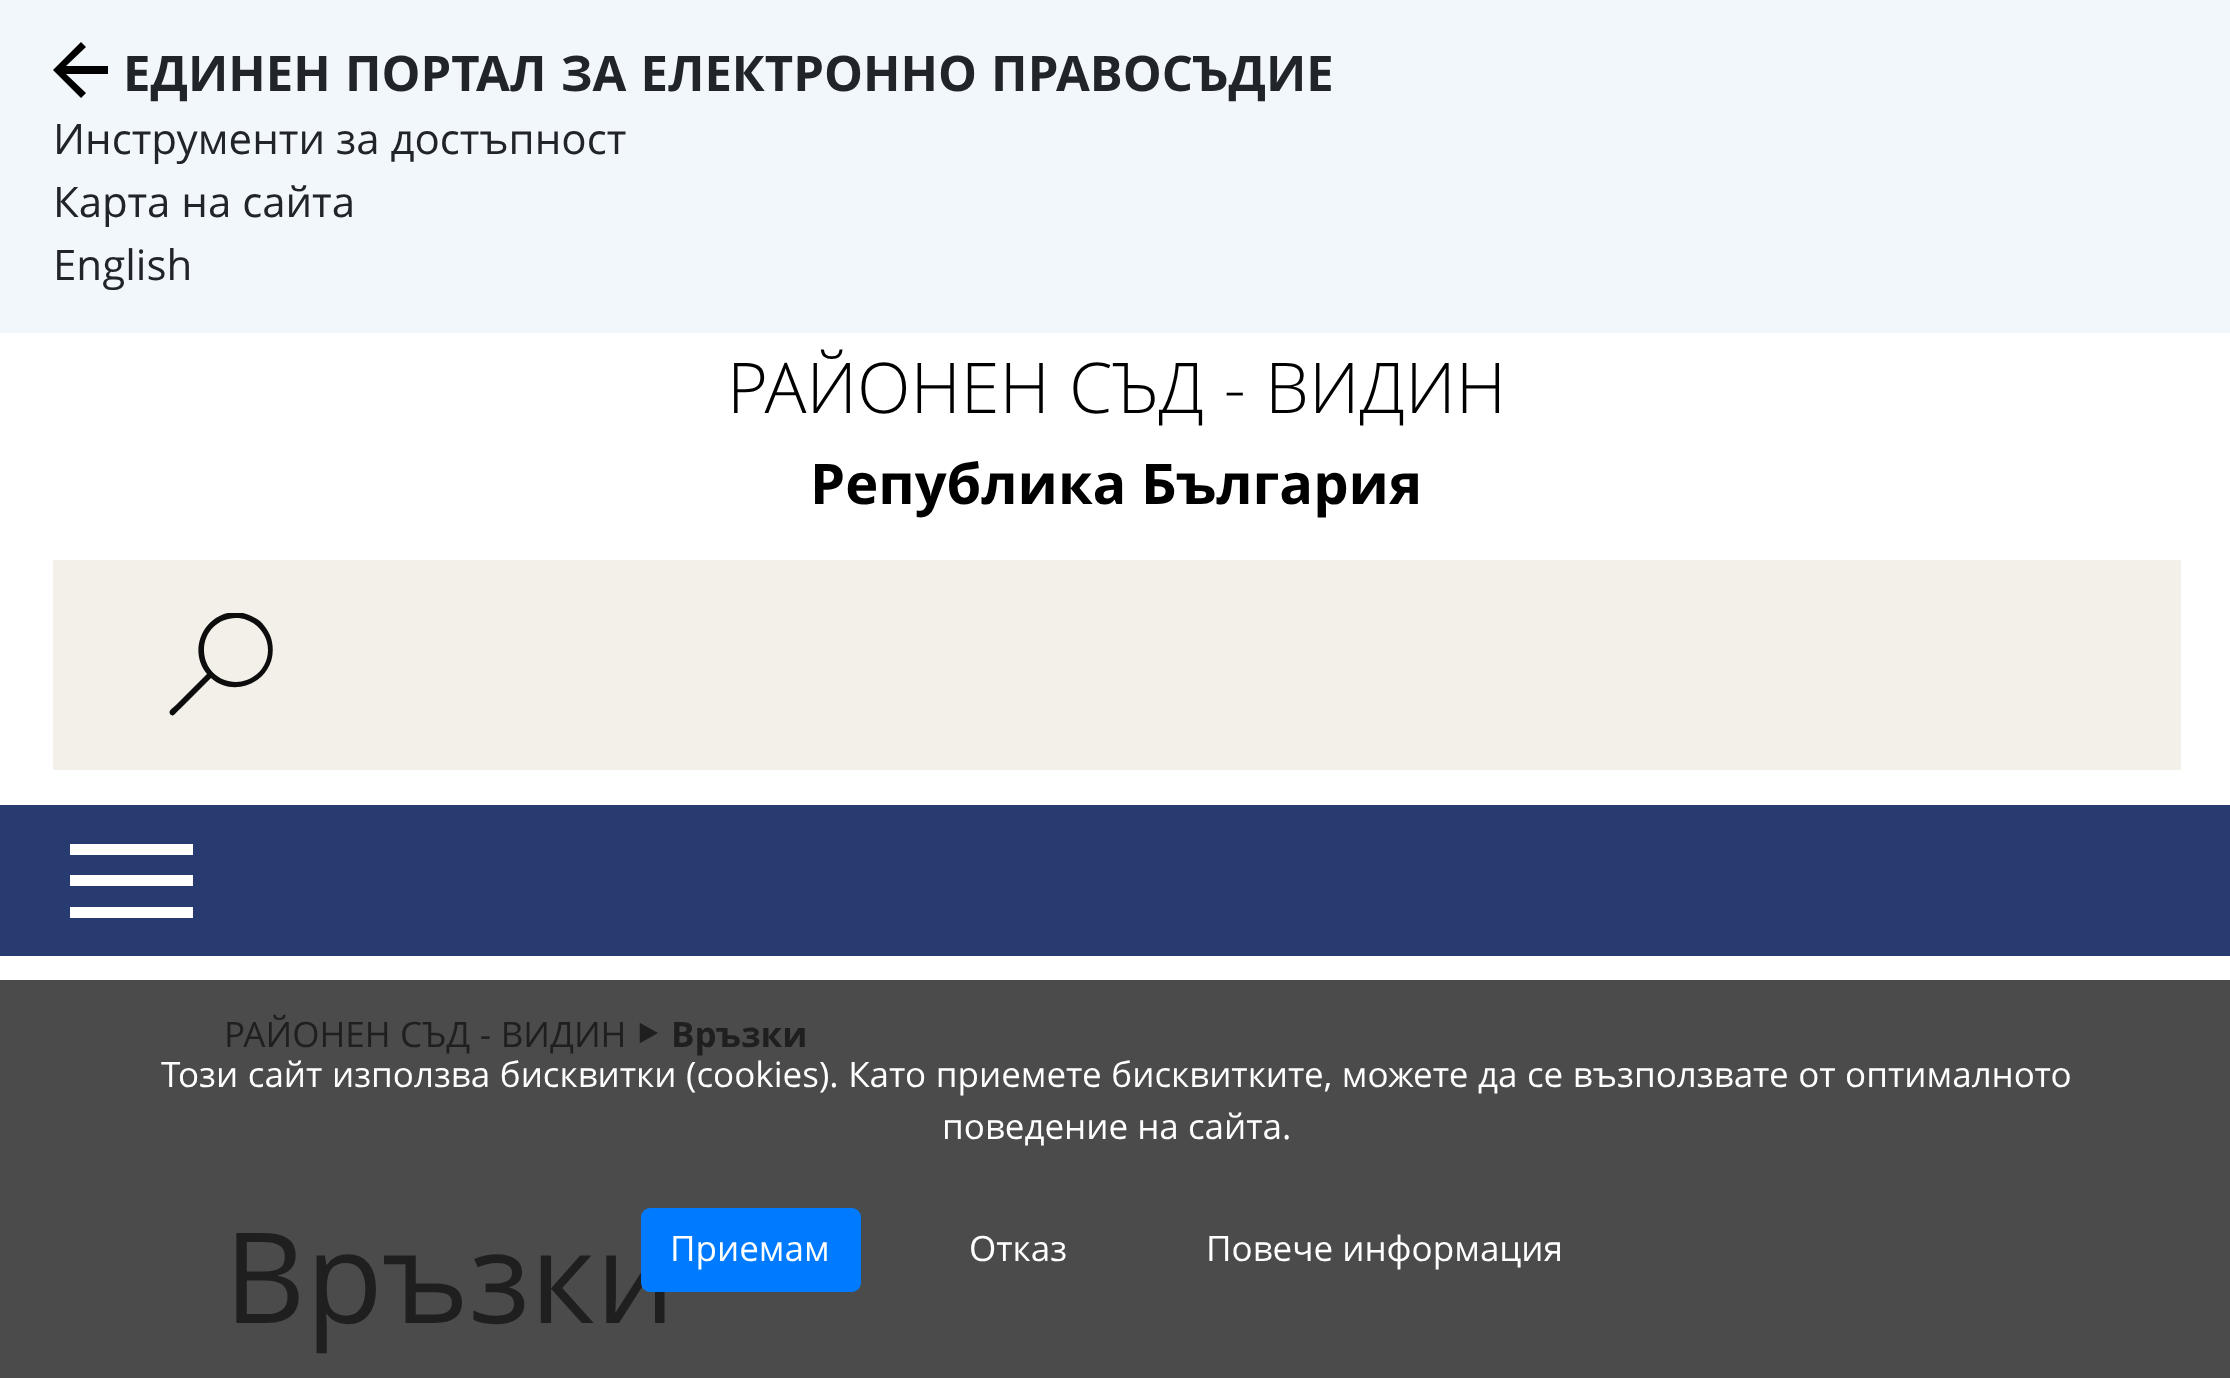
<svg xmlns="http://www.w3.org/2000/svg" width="2230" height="1378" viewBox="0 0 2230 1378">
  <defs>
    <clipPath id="clip1"><rect x="168" y="613" width="105" height="105"/></clipPath>
  </defs>
  <rect width="100%" height="100%" fill="#ffffff"/>
  <rect x="0" y="980" width="2230" height="398" fill="#4b4b4b"/>
  <rect x="0" y="0" width="2230" height="333" fill="#f1f7fb"/>
  <path d="M108 66V74H66L86 93L81 98L53 70L81 42L86 47L66 66Z" fill="#000000"/>
  <text x="123" y="91" word-spacing="1.5" font-family="Open Sans" font-size="49" font-weight="bold" fill="#212529">ЕДИНЕН ПОРТАЛ ЗА ЕЛЕКТРОННО ПРАВОСЪДИЕ</text>
  <text x="53" y="154" font-family="Open Sans" font-size="42" fill="#212529">Инструменти за достъпност</text>
  <text x="53" y="217" font-family="Open Sans" font-size="42" fill="#212529">Карта на сайта</text>
  <text x="53" y="280" font-family="Open Sans" font-size="42" fill="#212529">English</text>
  <text x="727" y="413" word-spacing="1" font-family="Open Sans" font-size="70" font-weight="300" fill="#000000">РАЙОНЕН СЪД - ВИДИН</text>
  <text x="810" y="504" font-family="Open Sans" font-size="56" font-weight="bold" fill="#000000">Република България</text>
  <rect x="53" y="560" width="2128" height="210" fill="#f3f0e9"/>
  <g clip-path="url(#clip1)">
    <path d="M211 678L180 709C177 711 174 717 171 715C167 711 172 709 176 705L207 674C185 648 208 606 243 613C250 615 257 618 262 623C267 629 271 635 272 642C279 678 237 701 211 678ZM236 682C253 682 268 668 268 650C268 632 253 618 236 618C218 618 204 632 204 650C204 668 218 682 236 682Z" fill="#0d0d0d"/>
  </g>
  <rect x="0" y="805" width="2230" height="151" fill="#283b71"/>
  <rect x="70" y="844" width="123" height="11" fill="#ffffff"/>
  <rect x="70" y="875" width="123" height="11" fill="#ffffff"/>
  <rect x="70" y="907" width="123" height="11" fill="#ffffff"/>
  <text x="224" y="1047" word-spacing="0.5" font-family="Open Sans" font-size="35" fill="#1f1f20">РАЙОНЕН СЪД - ВИДИН</text>
  <text x="635" y="1059" font-family="Noto Sans" font-size="70" fill="#1f1f20">‣</text>
  <text x="671" y="1047" font-family="Open Sans" font-size="35" font-weight="bold" fill="#1f1f20">Връзки</text>
  <text x="224" y="1323" font-family="Open Sans" font-size="126" fill="#1f1f20">Връзки</text>
  <text x="161" y="1087" word-spacing="0.5" font-family="Open Sans" font-size="35" fill="#ffffff">Този сайт използва бисквитки (cookies). Като приемете бисквитките, можете да се възползвате от оптималното</text>
  <text x="942" y="1139" font-family="Open Sans" font-size="35" fill="#ffffff">поведение на сайта.</text>
  <rect x="643" y="1210" width="216" height="80" rx="7" fill="#007bff" stroke="#007bff" stroke-width="4"/>
  <text x="670" y="1261" font-family="Open Sans" font-size="35" fill="#ffffff">Приемам</text>
  <text x="969" y="1261" font-family="Open Sans" font-size="35" fill="#ffffff">Отказ</text>
  <text x="1206" y="1261" font-family="Open Sans" font-size="35" fill="#ffffff">Повече информация</text>
</svg>
